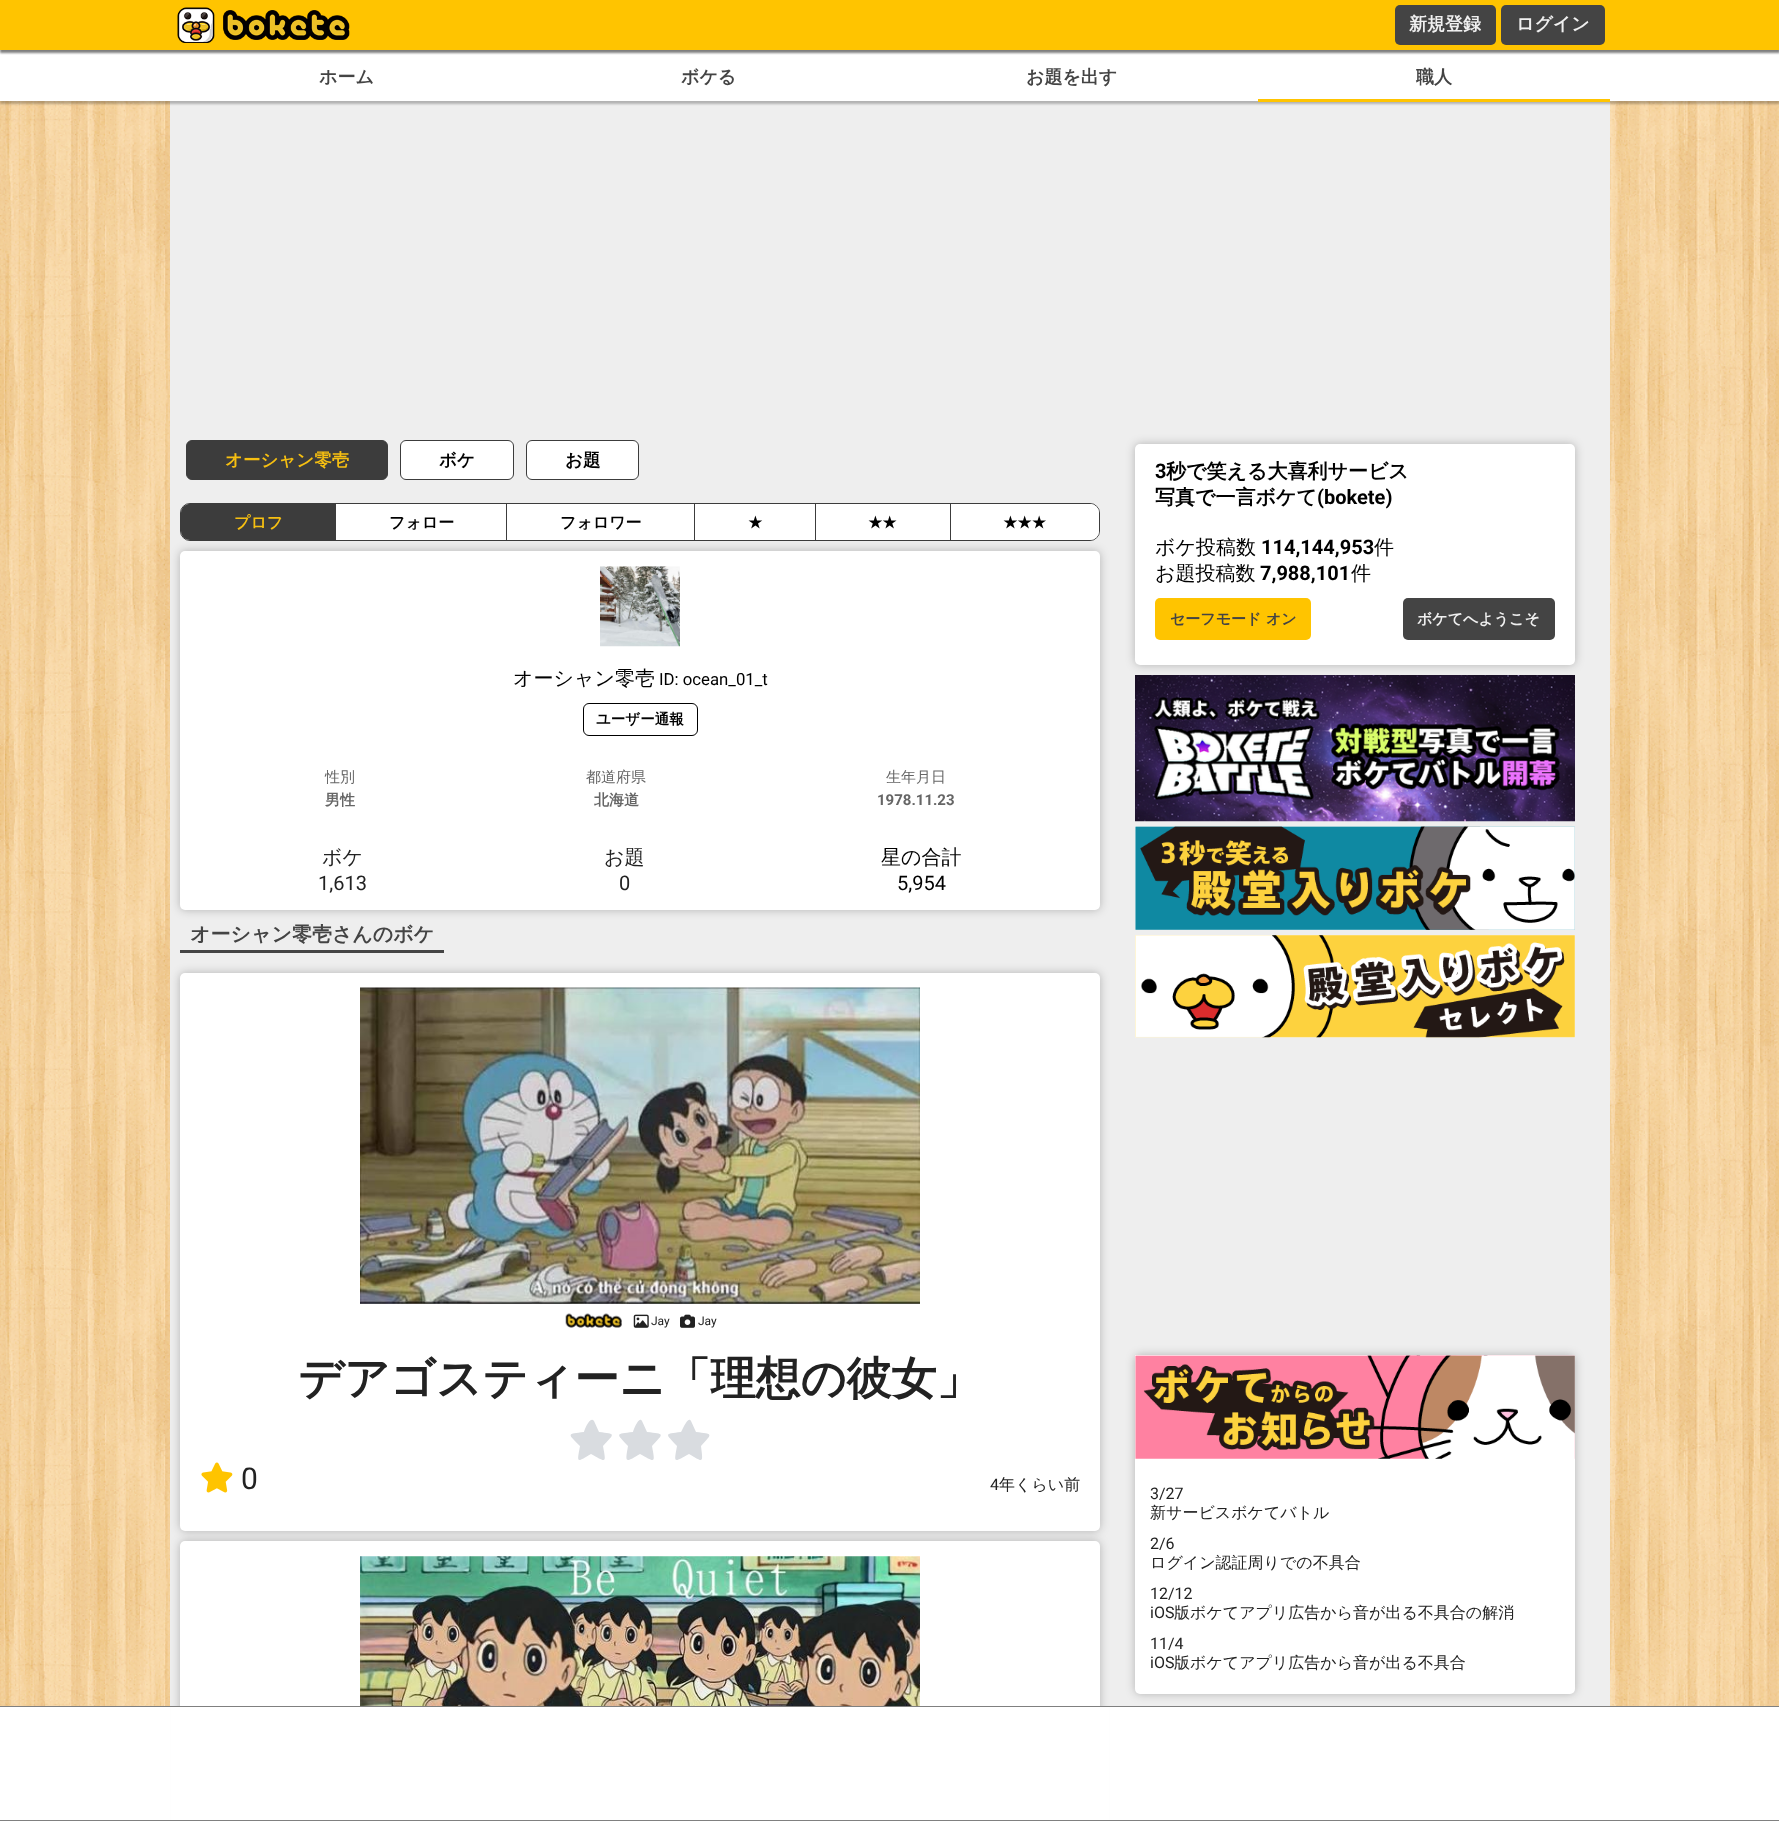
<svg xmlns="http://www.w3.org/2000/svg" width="1779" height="1821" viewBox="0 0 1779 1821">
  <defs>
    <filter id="blur1" x="-50%" y="-200%" width="200%" height="500%"><feGaussianBlur stdDeviation="1"/></filter>
    <filter id="blur2" x="-50%" y="-200%" width="200%" height="500%"><feGaussianBlur stdDeviation="5"/></filter>
  </defs>
  <rect width="100%" height="100%" fill="#ffffff"/>
  <image x="0" y="101" width="1779" height="1605" href="img1.png"/>
  <rect x="170" y="101" width="1440" height="1605" fill="#eeeeee"/>
  <rect x="0" y="3" width="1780" height="101" fill="#000000" fill-opacity="0.25" filter="url(#blur1)"/>
  <rect x="0" y="50" width="1779" height="51" fill="#ffffff"/>
  <rect x="0" y="3" width="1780" height="50" fill="#000000" fill-opacity="0.5" filter="url(#blur1)"/>
  <rect x="0" y="0" width="1779" height="50" fill="#ffc400"/>
  <image x="177" y="7" width="173" height="36" href="img2.png"/>
  <rect x="1395" y="5" width="101" height="40" rx="5" fill="#444444"/>
  <text x="1409" y="30" font-family="WenQuanYi Zen Hei" font-size="18" font-weight="bold" fill="#f0f0f0">新規登録</text>
  <rect x="1501" y="5" width="104" height="40" rx="5" fill="#444444"/>
  <text x="1516" y="30" font-family="WenQuanYi Zen Hei" font-size="18" font-weight="bold" fill="#f0f0f0">ログイン</text>
  <text x="319" y="83" font-family="WenQuanYi Zen Hei" font-size="18" font-weight="bold" fill="#444444">ホーム</text>
  <text x="681" y="83" font-family="WenQuanYi Zen Hei" font-size="18" font-weight="bold" fill="#444444">ボケる</text>
  <text x="1026" y="83" font-family="WenQuanYi Zen Hei" font-size="18" font-weight="bold" fill="#444444">お題を出す</text>
  <rect x="1258" y="99" width="352" height="3" fill="#ffc400"/>
  <text x="1416" y="83" font-family="WenQuanYi Zen Hei" font-size="18" font-weight="bold" fill="#444444">職人</text>
  <rect x="186.5" y="440.5" width="201" height="39" rx="5.5" fill="#3c3c3c" stroke="#3c3c3c"/>
  <text x="225" y="466" font-family="WenQuanYi Zen Hei" font-size="17.5" font-weight="bold" fill="#f6bf11">オーシャン零壱</text>
  <rect x="400.5" y="440.5" width="113" height="39" rx="5.5" fill="#ffffff" stroke="#3c3c3c"/>
  <text x="439" y="466" font-family="WenQuanYi Zen Hei" font-size="17.5" font-weight="bold" fill="#000000">ボケ</text>
  <rect x="526.5" y="440.5" width="112" height="39" rx="5.5" fill="#ffffff" stroke="#3c3c3c"/>
  <text x="565" y="466" font-family="WenQuanYi Zen Hei" font-size="17.5" font-weight="bold" fill="#000000">お題</text>
  <rect x="180" y="551" width="920" height="359" rx="5" fill="#000000" fill-opacity="0.25" filter="url(#blur2)"/>
  <rect x="180.5" y="503.5" width="919" height="37" rx="9.5" fill="none" stroke="#3c3c3c"/>
  <path d="M190 504H336V540H190C185 540 181 536 181 531V513C181 508 185 504 190 504Z" fill="#3c3c3c"/>
  <text x="234" y="528" font-family="WenQuanYi Zen Hei" font-size="16" font-weight="bold" fill="#f6bf11">プロフ</text>
  <rect x="336" y="504" width="358" height="36" fill="#ffffff"/>
  <rect x="506" y="504" width="1" height="36" fill="#3c3c3c"/>
  <text x="389" y="528" font-family="WenQuanYi Zen Hei" font-size="16" font-weight="bold" fill="#000000">フォロー</text>
  <rect x="694" y="504" width="1" height="36" fill="#3c3c3c"/>
  <text x="560" y="528" font-family="WenQuanYi Zen Hei" font-size="16" font-weight="bold" fill="#000000">フォロワー</text>
  <rect x="695" y="504" width="120" height="36" fill="#ffffff"/>
  <rect x="815" y="504" width="1" height="36" fill="#3c3c3c"/>
  <text x="748" y="528" font-family="DejaVu Sans" font-size="16" font-weight="bold" fill="#000000">★</text>
  <rect x="816" y="504" width="134" height="36" fill="#ffffff"/>
  <rect x="950" y="504" width="1" height="36" fill="#3c3c3c"/>
  <text x="868" y="528" font-family="DejaVu Sans" font-size="16" font-weight="bold" fill="#000000">★★</text>
  <path d="M951 504H1090C1095 504 1099 508 1099 513V531C1099 536 1095 540 1090 540H951Z" fill="#ffffff"/>
  <text x="1003" y="528" font-family="DejaVu Sans" font-size="16" font-weight="bold" fill="#000000">★★★</text>
  <rect x="180" y="551" width="920" height="359" rx="5" fill="#ffffff"/>
  <image x="600" y="566" width="80" height="81" href="img3.png"/>
  <text x="513" y="685" font-family="WenQuanYi Zen Hei" font-size="20" font-weight="500" fill="#000000">オーシャン零壱</text>
  <text x="659" y="685" font-family="Roboto" font-size="16.75" fill="#000000">ID: ocean_01_t</text>
  <rect x="583.5" y="703.5" width="114" height="32" rx="5.5" fill="none" stroke="#000000"/>
  <text x="596" y="724" font-family="WenQuanYi Zen Hei" font-size="14.5" font-weight="bold" fill="#000000">ユーザー通報</text>
  <text x="325" y="782" font-family="WenQuanYi Zen Hei" font-size="15" font-weight="500" fill="#666666">性別</text>
  <text x="325" y="805" font-family="WenQuanYi Zen Hei" font-size="15" font-weight="bold" fill="#666666">男性</text>
  <text x="586" y="782" font-family="WenQuanYi Zen Hei" font-size="15" font-weight="500" fill="#666666">都道府県</text>
  <text x="594" y="805" font-family="WenQuanYi Zen Hei" font-size="15" font-weight="bold" fill="#666666">北海道</text>
  <text x="886" y="782" font-family="WenQuanYi Zen Hei" font-size="15" font-weight="500" fill="#666666">生年月日</text>
  <text x="877" y="805" font-family="Roboto" font-size="15" font-weight="bold" fill="#666666">1978.11.23</text>
  <text x="322" y="864" font-family="WenQuanYi Zen Hei" font-size="20" font-weight="500" fill="#222222">ボケ</text>
  <text x="318" y="890" font-family="Roboto" font-size="20" fill="#222222">1,613</text>
  <text x="604" y="864" font-family="WenQuanYi Zen Hei" font-size="20" font-weight="500" fill="#222222">お題</text>
  <text x="619" y="890" font-family="Roboto" font-size="20" fill="#222222">0</text>
  <text x="881" y="864" font-family="WenQuanYi Zen Hei" font-size="20" font-weight="500" fill="#000000">星の合計</text>
  <text x="897" y="890" font-family="Roboto" font-size="20" fill="#000000">5,954</text>
  <rect x="180" y="950" width="264" height="3" fill="#444444"/>
  <text x="190" y="941" font-family="WenQuanYi Zen Hei" font-size="20" font-weight="bold" fill="#444444">オーシャン零壱さんのボケ</text>
  <rect x="180" y="973" width="920" height="558" rx="5" fill="#000000" fill-opacity="0.25" filter="url(#blur2)"/>
  <rect x="180" y="973" width="920" height="558" rx="5" fill="#ffffff"/>
  <image x="360" y="987" width="560" height="317" href="img4.png"/>
  <image x="565" y="1313" width="57" height="15" href="img5.png"/>
  <image x="633" y="1314" width="16" height="14" href="img6.png"/>
  <text x="651" y="1325" font-family="Roboto" font-size="12" fill="#222222">Jay</text>
  <image x="680" y="1314" width="15" height="14" href="img7.png"/>
  <text x="698" y="1325" font-family="Roboto" font-size="12" fill="#222222">Jay</text>
  <text x="298" y="1394" font-family="WenQuanYi Zen Hei" font-size="45" font-weight="bold" fill="#222222">デアゴスティーニ「理想の彼女」</text>
  <path d="M594 1421C590 1415 584 1431 584 1432C567 1434 567 1433 580 1446C577 1463 576 1463 591 1454C607 1463 606 1463 603 1446C615 1433 616 1434 599 1432Z" fill="#d9dce0"/>
  <path d="M642 1421C639 1415 633 1431 633 1432C615 1434 616 1433 628 1446C625 1463 625 1463 640 1454C656 1463 655 1463 652 1446C664 1433 665 1434 647 1432Z" fill="#d9dce0"/>
  <path d="M691 1421C688 1415 682 1431 681 1432C664 1434 665 1433 677 1446C674 1463 673 1463 689 1454C704 1463 703 1463 701 1446C713 1433 713 1434 696 1432Z" fill="#d9dce0"/>
  <image x="201" y="1462" width="32" height="31" href="img8.png"/>
  <text x="241" y="1489" font-family="Roboto" font-size="30" fill="#222222">0</text>
  <text x="990" y="1490" font-family="Roboto" font-size="16" fill="#222222">4</text>
  <text x="999" y="1490" font-family="WenQuanYi Zen Hei" font-size="16" font-weight="500" fill="#222222">年くらい前</text>
  <rect x="180" y="1541" width="920" height="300" rx="5" fill="#000000" fill-opacity="0.25" filter="url(#blur2)"/>
  <rect x="180" y="1541" width="920" height="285" rx="5" fill="#ffffff"/>
  <image x="360" y="1556" width="560" height="150" href="img9.png"/>
  <rect x="1135" y="444" width="440" height="221" rx="5" fill="#000000" fill-opacity="0.25" filter="url(#blur2)"/>
  <rect x="1135" y="444" width="440" height="221" rx="5" fill="#ffffff"/>
  <text x="1155" y="478" font-family="Roboto" font-size="20" font-weight="bold" fill="#000000">3</text>
  <text x="1166" y="478" font-family="WenQuanYi Zen Hei" font-size="20" font-weight="bold" fill="#000000">秒で笑える大喜利サービス</text>
  <text x="1155" y="504" font-family="WenQuanYi Zen Hei" font-size="20" font-weight="bold" fill="#000000">写真で一言ボケて</text>
  <text x="1317" y="504" font-family="Roboto" font-size="20" font-weight="bold" fill="#000000">(bokete)</text>
  <text x="1155" y="554" font-family="WenQuanYi Zen Hei" font-size="20" font-weight="500" fill="#000000">ボケ投稿数</text>
  <text x="1261" y="554" font-family="Roboto" font-size="20" font-weight="bold" fill="#000000">114,144,953</text>
  <text x="1374" y="554" font-family="WenQuanYi Zen Hei" font-size="20" font-weight="500" fill="#000000">件</text>
  <text x="1155" y="580" font-family="WenQuanYi Zen Hei" font-size="20" font-weight="500" fill="#000000">お題投稿数</text>
  <text x="1260" y="580" font-family="Roboto" font-size="20" font-weight="bold" fill="#000000">7,988,101</text>
  <text x="1351" y="580" font-family="WenQuanYi Zen Hei" font-size="20" font-weight="500" fill="#000000">件</text>
  <rect x="1155" y="598" width="156" height="42" rx="5" fill="#ffc400"/>
  <text x="1170" y="624" font-family="WenQuanYi Zen Hei" font-size="15" font-weight="bold" fill="#444444">セーフモード オン</text>
  <rect x="1403" y="598" width="152" height="42" rx="5" fill="#444444"/>
  <text x="1417" y="624" font-family="WenQuanYi Zen Hei" font-size="15" font-weight="bold" fill="#f0f0f0">ボケてへようこそ</text>
  <image x="1135" y="675" width="440" height="147" href="img10.png"/>
  <image x="1135" y="826" width="440" height="104" href="img11.png"/>
  <image x="1135" y="935" width="440" height="103" href="img12.png"/>
  <rect x="1135" y="1355" width="440" height="339" rx="5" fill="#000000" fill-opacity="0.25" filter="url(#blur2)"/>
  <rect x="1135" y="1355" width="440" height="339" rx="5" fill="#ffffff"/>
  <image x="1135" y="1355" width="440" height="104" href="img13.png"/>
  <text x="1150" y="1499" font-family="Roboto" font-size="16" fill="#222222">3/27</text>
  <text x="1150" y="1518" font-family="WenQuanYi Zen Hei" font-size="16" font-weight="500" fill="#222222">新サービスボケてバトル</text>
  <text x="1150" y="1549" font-family="Roboto" font-size="16" fill="#222222">2/6</text>
  <text x="1150" y="1568" font-family="WenQuanYi Zen Hei" font-size="16" font-weight="500" fill="#222222">ログイン認証周りでの不具合</text>
  <text x="1150" y="1599" font-family="Roboto" font-size="16" fill="#222222">12/12</text>
  <text x="1150" y="1618" font-family="Roboto" font-size="16" fill="#222222">iOS</text>
  <text x="1174" y="1618" font-family="WenQuanYi Zen Hei" font-size="16" font-weight="500" fill="#222222">版ボケてアプリ広告から音が出る不具合の解消</text>
  <text x="1150" y="1649" font-family="Roboto" font-size="16" fill="#222222">11/4</text>
  <text x="1150" y="1668" font-family="Roboto" font-size="16" fill="#222222">iOS</text>
  <text x="1174" y="1668" font-family="WenQuanYi Zen Hei" font-size="16" font-weight="500" fill="#222222">版ボケてアプリ広告から音が出る不具合</text>
  <rect x="171" y="1707" width="938" height="113" fill="#ffffff"/>
  <rect x="0" y="1706" width="1779" height="1" fill="#808080"/>
  <rect x="0" y="1820" width="1779" height="1" fill="#808080"/>
</svg>
